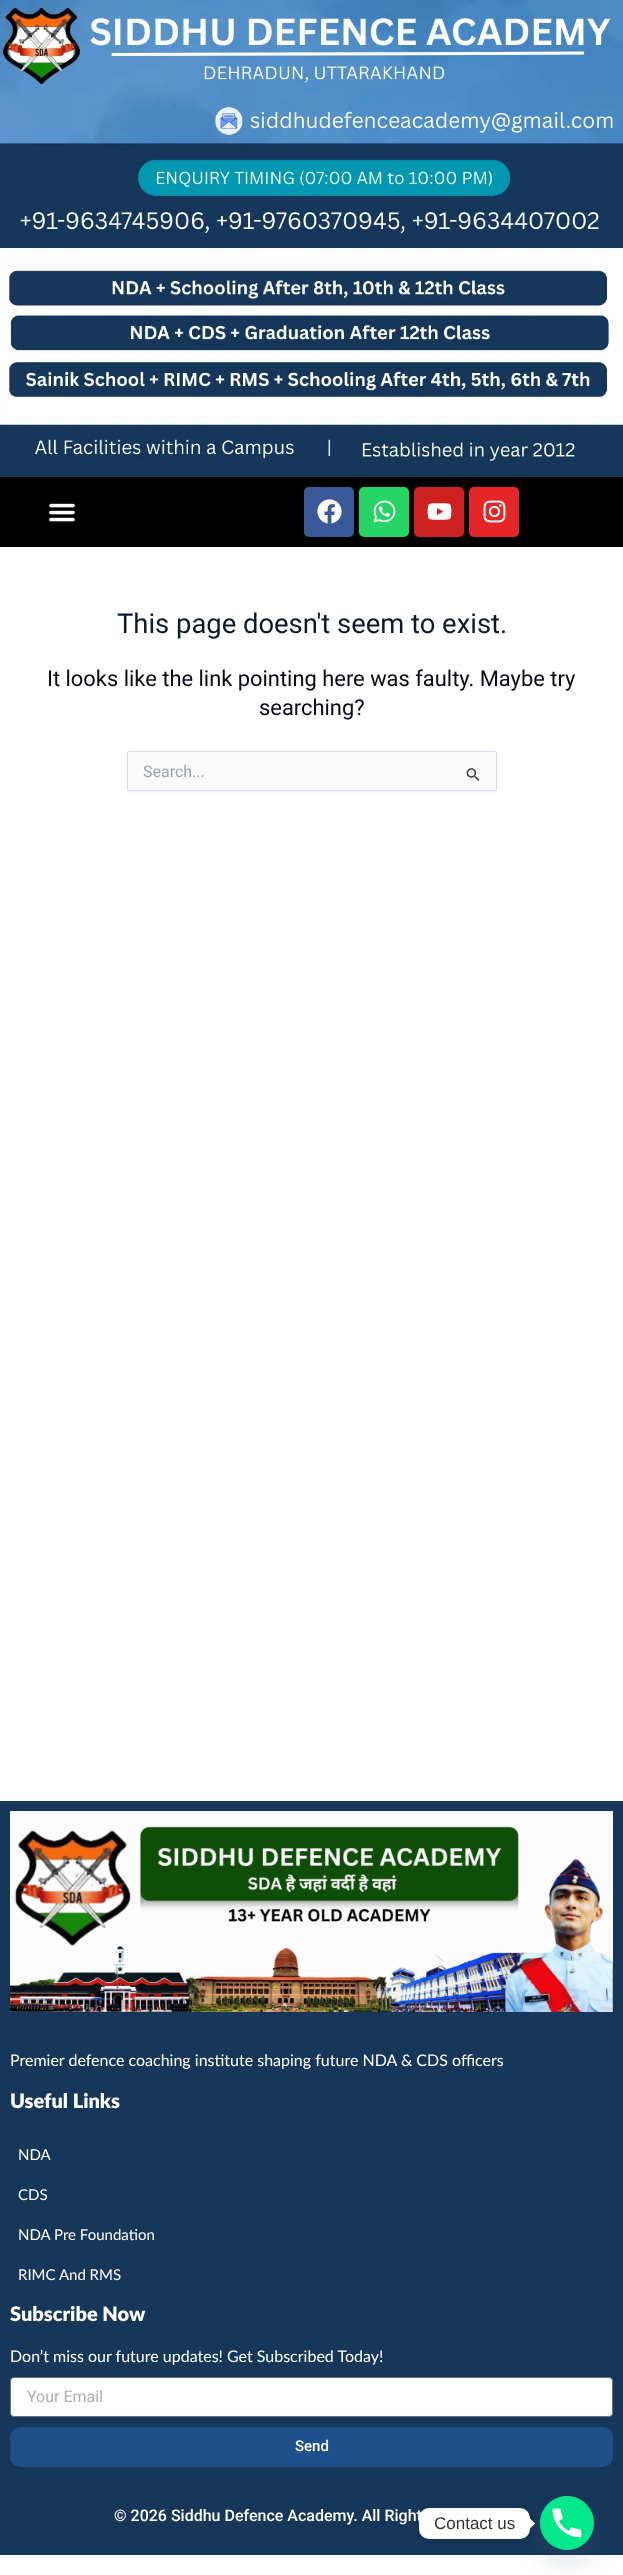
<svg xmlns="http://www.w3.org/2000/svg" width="623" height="2575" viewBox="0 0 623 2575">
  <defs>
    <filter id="blur1" x="-50%" y="-200%" width="200%" height="500%"><feGaussianBlur stdDeviation="1"/></filter>
    <filter id="blur2" x="-50%" y="-200%" width="200%" height="500%"><feGaussianBlur stdDeviation="12"/></filter>
    <filter id="blur3" x="-50%" y="-200%" width="200%" height="500%"><feGaussianBlur stdDeviation="4"/></filter>
  </defs>
  <rect width="100%" height="100%" fill="#ffffff"/>
  <image x="0" y="0" width="623" height="477" href="img1.png"/>
  <rect x="0" y="477" width="623" height="70" fill="#000000"/>
  <image x="49" y="503" width="26" height="19" href="img2.png"/>
  <rect x="304" y="487" width="50" height="50" rx="5" fill="#3b5998"/>
  <image x="317" y="499" width="25" height="25" href="img3.png"/>
  <rect x="359" y="487" width="50" height="50" rx="5" fill="#25d366"/>
  <image x="373" y="500" width="23" height="23" href="img4.png"/>
  <rect x="414" y="487" width="50" height="50" rx="5" fill="#cd201f"/>
  <image x="427" y="503" width="25" height="17" href="img5.png"/>
  <rect x="469" y="487" width="50" height="50" rx="5" fill="#e52626"/>
  <image x="483" y="500" width="23" height="23" href="img6.png"/>
  <text x="117" y="633" font-family="Roboto" font-size="27.4" fill="#0f172a">This page doesn't seem to exist.</text>
  <text x="47" y="686" font-family="Roboto" font-size="21.9" fill="#0d0614">It looks like the link pointing here was faulty. Maybe try</text>
  <text x="259" y="715" font-family="Roboto" font-size="21.9" fill="#0d0614">searching?</text>
  <rect x="127" y="752" width="370" height="40" rx="2" fill="#000000" fill-opacity="0.05" filter="url(#blur1)"/>
  <rect x="127.5" y="751.5" width="369" height="39" rx="1.5" fill="#fafafa" stroke="#d8d8f5"/>
  <text x="143" y="777" font-family="Roboto" font-size="16" fill="#9ca3af">Search...</text>
  <image x="466" y="768" width="14" height="13" href="img7.png"/>
  <rect x="0" y="1801" width="623" height="754" fill="#16365a"/>
  <image x="10" y="1811" width="603" height="201" href="img8.png"/>
  <text x="10" y="2066" font-family="Lato" font-size="16" fill="#ffffff">Premier defence coaching institute shaping future NDA &amp; CDS officers</text>
  <text x="10" y="2108" font-family="Lato" font-size="20" font-weight="800" fill="#ffffff">Useful Links</text>
  <text x="18" y="2160" font-family="Lato" font-size="15" fill="#ffffff">NDA</text>
  <text x="18" y="2200" font-family="Lato" font-size="15" fill="#ffffff">CDS</text>
  <text x="18" y="2240" font-family="Lato" font-size="15" fill="#ffffff">NDA Pre Foundation</text>
  <text x="18" y="2280" font-family="Lato" font-size="15" fill="#ffffff">RIMC And RMS</text>
  <text x="10" y="2321" font-family="Lato" font-size="20" font-weight="800" fill="#ffffff">Subscribe Now</text>
  <text x="10" y="2362" font-family="Lato" font-size="16" fill="#ffffff">Don’t miss our future updates! Get Subscribed Today!</text>
  <rect x="10.5" y="2377.5" width="602" height="39" rx="3.5" fill="#ffffff" stroke="#69727d"/>
  <text x="27" y="2402" font-family="Roboto" font-size="16" fill="#afafaf">Your Email</text>
  <rect x="10" y="2427" width="603" height="40" rx="10" fill="#1d4f88"/>
  <text x="295" y="2451" font-family="Roboto" font-size="15" font-weight="500" fill="#ffffff">Send</text>
  <text x="114" y="2521" font-family="Roboto" font-size="16" font-weight="500" fill="#ffffff">© 2026 Siddhu Defence Academy. All Right</text>
  <rect x="540" y="2512" width="54" height="54" rx="27" fill="#49687e" fill-opacity="0.16" filter="url(#blur2)"/>
  <image x="540" y="2496" width="54" height="54" href="img9.png"/>
  <rect x="419" y="2509" width="111" height="31" rx="10" fill="#000000" fill-opacity="0.15" filter="url(#blur3)"/>
  <rect x="419" y="2508" width="111" height="31" rx="10" fill="#ffffff"/>
  <text x="434" y="2529" font-family="Liberation Sans" font-size="17" fill="#333333">Contact us</text>
  <path d="M530 2528.5V2518.5L535 2523.5Z" fill="#ffffff"/>
</svg>
